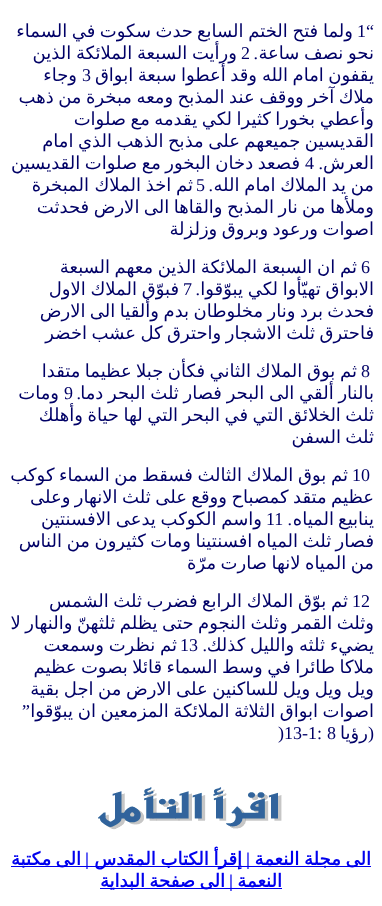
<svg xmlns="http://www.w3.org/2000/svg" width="382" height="906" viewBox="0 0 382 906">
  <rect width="100%" height="100%" fill="#ffffff"/>
  <text x="357" y="37" font-family="Liberation Serif" font-size="18" fill="#000066">1“</text>
  <text x="353" y="37" word-spacing="-1" font-family="DejaVu Sans" font-size="18" direction="rtl" fill="#000066">ولما فتح الختم السابع</text>
  <text x="193" y="37" word-spacing="-1.25" font-family="DejaVu Sans" font-size="18" direction="rtl" fill="#000066">حدث سكوت في السماء</text>
  <text x="374" y="59" word-spacing="-1" font-family="DejaVu Sans" font-size="18" direction="rtl" fill="#000066">نحو نصف ساعة</text>
  <text x="258" y="59" font-family="Liberation Serif" font-size="18" direction="rtl" fill="#000066">.</text>
  <text x="241" y="59" font-family="Liberation Serif" font-size="18" fill="#000066">2</text>
  <text x="237" y="59" word-spacing="-1" font-family="DejaVu Sans" font-size="18" direction="rtl" fill="#000066">ورأيت السبعة الملائكة الذين</text>
  <text x="374" y="81" word-spacing="-1.25" font-family="DejaVu Sans" font-size="18" direction="rtl" fill="#000066">يقفون امام الله</text>
  <text x="257" y="81" word-spacing="-1.25" font-family="DejaVu Sans" font-size="18" direction="rtl" fill="#000066">وقد أعطوا سبعة ابواق</text>
  <text x="82" y="81" font-family="Liberation Serif" font-size="18" fill="#000066">3</text>
  <text x="77" y="81" font-family="DejaVu Sans" font-size="18" direction="rtl" fill="#000066">وجاء</text>
  <text x="374" y="103" word-spacing="-1.25" font-family="DejaVu Sans" font-size="18" direction="rtl" fill="#000066">ملاك آخر ووقف عند المذبح ومعه مبخرة من ذهب</text>
  <text x="374" y="125" font-family="DejaVu Sans" font-size="18" direction="rtl" fill="#000066">وأعطي</text>
  <text x="315" y="125" word-spacing="-1.25" font-family="DejaVu Sans" font-size="18" direction="rtl" fill="#000066">بخورا كثيرا لكي يقدمه مع صلوات</text>
  <text x="374" y="147" word-spacing="-1.25" font-family="DejaVu Sans" font-size="18" direction="rtl" fill="#000066">القديسين جميعهم على مذبح الذهب الذي امام</text>
  <text x="374" y="169" font-family="DejaVu Sans" font-size="18" direction="rtl" fill="#000066">العرش</text>
  <text x="323" y="169" font-family="Liberation Serif" font-size="18" direction="rtl" fill="#000066">.</text>
  <text x="300" y="169" word-spacing="-1.25" font-family="DejaVu Sans" font-size="18" direction="rtl" fill="#000066">فصعد دخان البخور مع صلوات القديسين</text>
  <text x="305" y="169" font-family="Liberation Serif" font-size="18" fill="#000066">4</text>
  <text x="374" y="191" word-spacing="-1" font-family="DejaVu Sans" font-size="18" direction="rtl" fill="#000066">من يد الملاك امام الله</text>
  <text x="213" y="191" font-family="Liberation Serif" font-size="18" direction="rtl" fill="#000066">.</text>
  <text x="196" y="191" font-family="Liberation Serif" font-size="18" fill="#000066">5</text>
  <text x="193" y="191" word-spacing="-1" font-family="DejaVu Sans" font-size="18" direction="rtl" fill="#000066">ثم اخذ الملاك</text>
  <text x="89" y="191" font-family="DejaVu Sans" font-size="18" direction="rtl" fill="#000066">المبخرة</text>
  <text x="374" y="213" word-spacing="-1.25" font-family="DejaVu Sans" font-size="18" direction="rtl" fill="#000066">وملأها من نار المذبح والقاها الى الارض فحدثت</text>
  <text x="374" y="235" word-spacing="-1.25" font-family="DejaVu Sans" font-size="18" direction="rtl" fill="#000066">اصوات ورعود وبروق وزلزلة</text>
  <text x="361" y="273" font-family="Liberation Serif" font-size="18" fill="#000066">6</text>
  <text x="357" y="273" word-spacing="-1" font-family="DejaVu Sans" font-size="18" direction="rtl" fill="#000066">ثم ان السبعة</text>
  <text x="257" y="273" word-spacing="-1.25" font-family="DejaVu Sans" font-size="18" direction="rtl" fill="#000066">الملائكة الذين معهم السبعة</text>
  <text x="374" y="295" word-spacing="-1" font-family="DejaVu Sans" font-size="18" direction="rtl" fill="#000066">الابواق تهيّأوا لكي يبوّقوا</text>
  <text x="200" y="295" font-family="Liberation Serif" font-size="18" direction="rtl" fill="#000066">.</text>
  <text x="183" y="295" font-family="Liberation Serif" font-size="18" fill="#000066">7</text>
  <text x="179" y="295" word-spacing="-1" font-family="DejaVu Sans" font-size="18" direction="rtl" fill="#000066">فبوّق الملاك الاول</text>
  <text x="374" y="317" word-spacing="-1.25" font-family="DejaVu Sans" font-size="18" direction="rtl" fill="#000066">فحدث برد ونار مخلوطان بدم وألقيا الى الارض</text>
  <text x="374" y="339" word-spacing="-1.25" font-family="DejaVu Sans" font-size="18" direction="rtl" fill="#000066">فاحترق ثلث الاشجار واحترق كل عشب اخضر</text>
  <text x="361" y="377" font-family="Liberation Serif" font-size="18" fill="#000066">8</text>
  <text x="357" y="377" word-spacing="-1" font-family="DejaVu Sans" font-size="18" direction="rtl" fill="#000066">ثم بوق الملاك</text>
  <text x="251" y="377" word-spacing="-1.25" font-family="DejaVu Sans" font-size="18" direction="rtl" fill="#000066">الثاني فكأن جبلا عظيما متقدا</text>
  <text x="374" y="399" word-spacing="-1" font-family="DejaVu Sans" font-size="18" direction="rtl" fill="#000066">بالنار ألقي الى البحر فصار ثلث البحر دما</text>
  <text x="81" y="399" font-family="Liberation Serif" font-size="18" direction="rtl" fill="#000066">.</text>
  <text x="64" y="399" font-family="Liberation Serif" font-size="18" fill="#000066">9</text>
  <text x="59" y="399" font-family="DejaVu Sans" font-size="18" direction="rtl" fill="#000066">ومات</text>
  <text x="374" y="421" word-spacing="-1.25" font-family="DejaVu Sans" font-size="18" direction="rtl" fill="#000066">ثلث الخلائق التي في البحر التي لها حياة وأهلك</text>
  <text x="374" y="443" word-spacing="-1.25" font-family="DejaVu Sans" font-size="18" direction="rtl" fill="#000066">ثلث السفن</text>
  <text x="352" y="481" font-family="Liberation Serif" font-size="18" fill="#000066">10</text>
  <text x="348" y="481" word-spacing="-1" font-family="DejaVu Sans" font-size="18" direction="rtl" fill="#000066">ثم بوق الملاك</text>
  <text x="242" y="481" word-spacing="-1.25" font-family="DejaVu Sans" font-size="18" direction="rtl" fill="#000066">الثالث فسقط من السماء كوكب</text>
  <text x="374" y="503" word-spacing="-1.25" font-family="DejaVu Sans" font-size="18" direction="rtl" fill="#000066">عظيم متقد كمصباح ووقع على ثلث الانهار وعلى</text>
  <text x="374" y="525" font-family="DejaVu Sans" font-size="18" direction="rtl" fill="#000066">ينابيع</text>
  <text x="334" y="525" font-family="DejaVu Sans" font-size="18" direction="rtl" fill="#000066">المياه</text>
  <text x="292" y="525" font-family="Liberation Serif" font-size="18" direction="rtl" fill="#000066">.</text>
  <text x="266" y="525" font-family="Liberation Serif" font-size="18" fill="#000066">11</text>
  <text x="262" y="525" word-spacing="-1" font-family="DejaVu Sans" font-size="18" direction="rtl" fill="#000066">واسم الكوكب يدعى الافسنتين</text>
  <text x="374" y="547" word-spacing="-1.25" font-family="DejaVu Sans" font-size="18" direction="rtl" fill="#000066">فصار ثلث المياه افسنتينا ومات كثيرون من</text>
  <text x="62" y="547" font-family="DejaVu Sans" font-size="18" direction="rtl" fill="#000066">الناس</text>
  <text x="374" y="569" word-spacing="-1.25" font-family="DejaVu Sans" font-size="18" direction="rtl" fill="#000066">من المياه لانها صارت مرّة</text>
  <text x="352" y="607" font-family="Liberation Serif" font-size="18" fill="#000066">12</text>
  <text x="348" y="607" word-spacing="-1" font-family="DejaVu Sans" font-size="18" direction="rtl" fill="#000066">ثم بوّق الملاك</text>
  <text x="242" y="607" word-spacing="-1.25" font-family="DejaVu Sans" font-size="18" direction="rtl" fill="#000066">الرابع فضرب ثلث الشمس</text>
  <text x="374" y="629" word-spacing="-1.25" font-family="DejaVu Sans" font-size="18" direction="rtl" fill="#000066">وثلث القمر وثلث النجوم حتى يظلم ثلثهنّ والنهار لا</text>
  <text x="374" y="651" font-family="DejaVu Sans" font-size="18" direction="rtl" fill="#000066">يضيء</text>
  <text x="325" y="651" word-spacing="-1" font-family="DejaVu Sans" font-size="18" direction="rtl" fill="#000066">ثلثه والليل كذلك</text>
  <text x="207" y="651" font-family="Liberation Serif" font-size="18" direction="rtl" fill="#000066">.</text>
  <text x="180" y="651" font-family="Liberation Serif" font-size="18" fill="#000066">13</text>
  <text x="177" y="651" word-spacing="-1" font-family="DejaVu Sans" font-size="18" direction="rtl" fill="#000066">ثم نظرت وسمعت</text>
  <text x="374" y="673" word-spacing="-1.25" font-family="DejaVu Sans" font-size="18" direction="rtl" fill="#000066">ملاكا طائرا في وسط السماء قائلا بصوت عظيم</text>
  <text x="374" y="695" font-family="DejaVu Sans" font-size="18" direction="rtl" fill="#000066">ويل</text>
  <text x="342" y="695" word-spacing="-1.25" font-family="DejaVu Sans" font-size="18" direction="rtl" fill="#000066">ويل ويل للساكنين على الارض من اجل بقية</text>
  <text x="374" y="717" word-spacing="-1.25" font-family="DejaVu Sans" font-size="18" direction="rtl" fill="#000066">اصوات ابواق الثلاثة الملائكة المزمعين ان</text>
  <text x="73" y="717" font-family="DejaVu Sans" font-size="18" direction="rtl" fill="#000066">يبوّقوا</text>
  <text x="30" y="717" font-family="Liberation Serif" font-size="18" direction="rtl" fill="#000066">”</text>
  <text x="374" y="739" font-family="Liberation Serif" font-size="18" direction="rtl" fill="#000066">(</text>
  <text x="368" y="739" font-family="DejaVu Sans" font-size="18" direction="rtl" fill="#000066">رؤيا</text>
  <text x="327" y="739" font-family="Liberation Serif" font-size="18" fill="#000066">8</text>
  <text x="278" y="739" font-family="Liberation Serif" font-size="18" fill="#000066">)13-1:</text>
  <image x="98" y="787" width="184" height="43" href="img1.png"/>
  <rect x="11" y="866" width="360" height="1" fill="#0000ee"/>
  <text x="371" y="865" word-spacing="-1" font-family="DejaVu Sans" font-size="18" font-weight="bold" direction="rtl" fill="#0000ee">الى مجلة النعمة</text>
  <text x="250" y="865" font-family="Liberation Serif" font-size="18" font-weight="bold" direction="rtl" fill="#0000ee">|</text>
  <text x="242" y="865" word-spacing="-1" font-family="DejaVu Sans" font-size="18" font-weight="bold" direction="rtl" fill="#0000ee">إقرأ الكتاب المقدس</text>
  <text x="89" y="865" font-family="Liberation Serif" font-size="18" font-weight="bold" direction="rtl" fill="#0000ee">|</text>
  <text x="81" y="865" word-spacing="-1.25" font-family="DejaVu Sans" font-size="18" font-weight="bold" direction="rtl" fill="#0000ee">الى مكتبة</text>
  <text x="282" y="887" font-family="DejaVu Sans" font-size="18" font-weight="bold" direction="rtl" fill="#0000ee">النعمة</text>
  <rect x="100" y="888" width="182" height="1" fill="#0000ee"/>
  <text x="233" y="887" font-family="Liberation Serif" font-size="18" font-weight="bold" direction="rtl" fill="#0000ee">|</text>
  <text x="225" y="887" word-spacing="-1.25" font-family="DejaVu Sans" font-size="18" font-weight="bold" direction="rtl" fill="#0000ee">الى صفحة البداية</text>
</svg>
